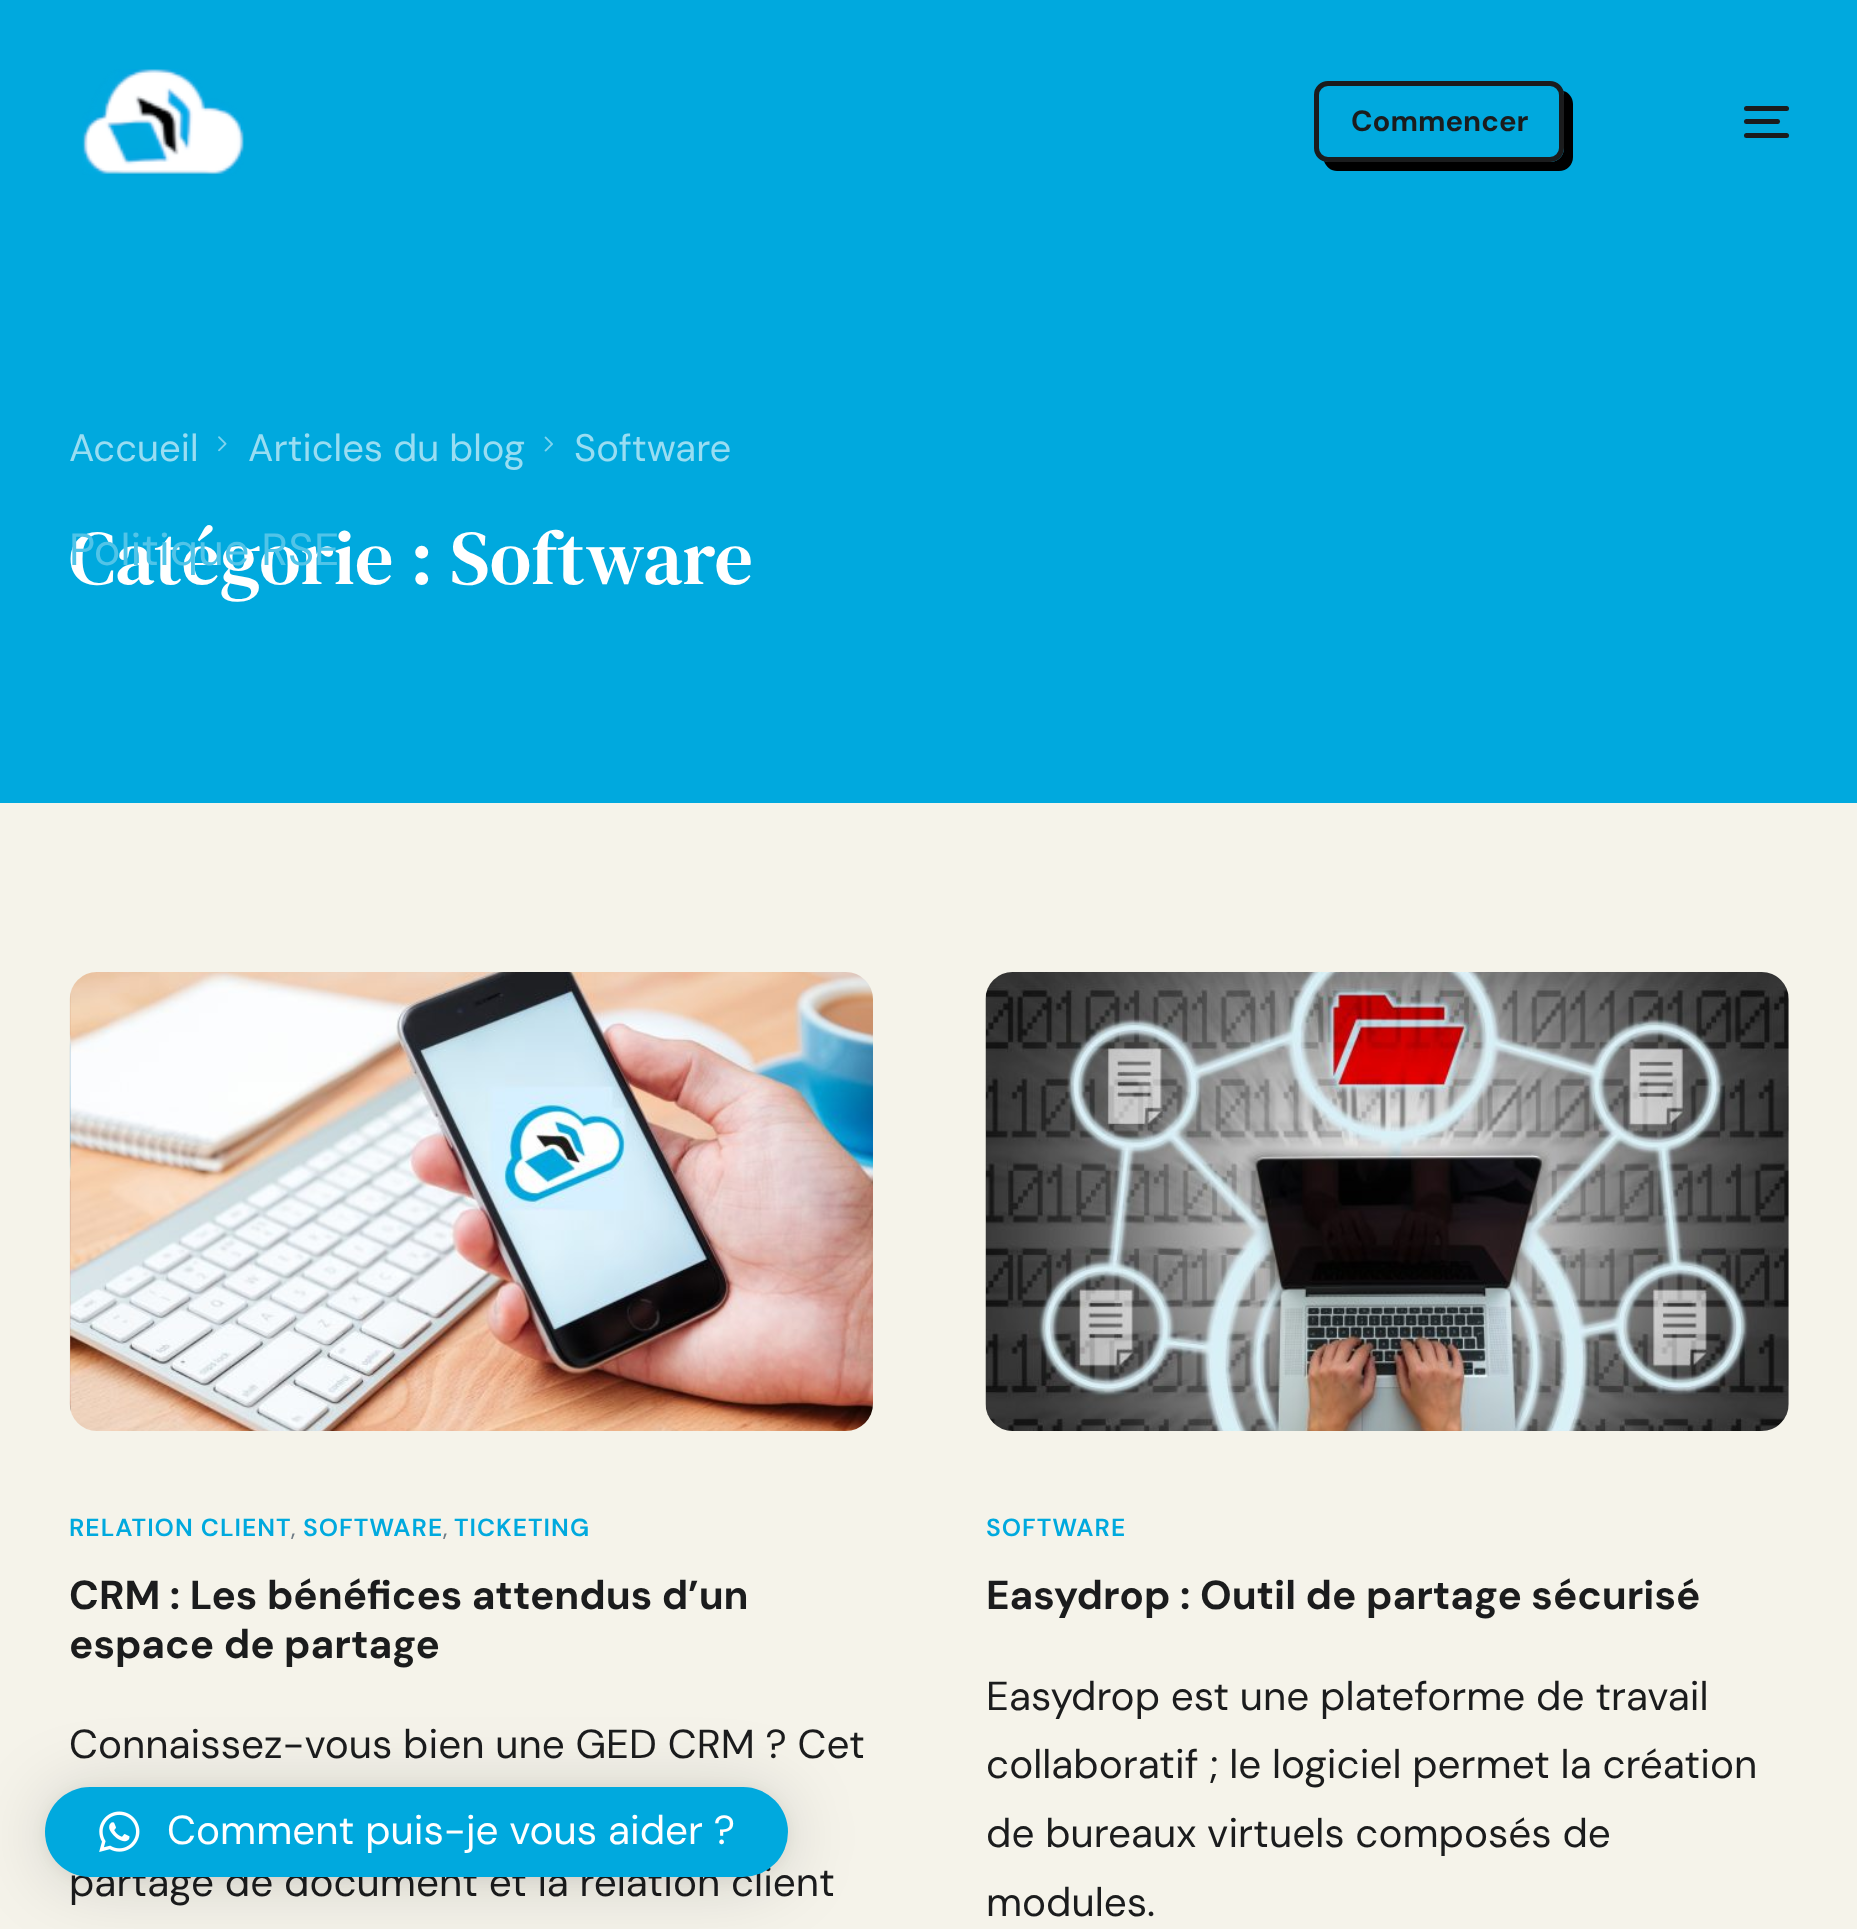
<svg xmlns="http://www.w3.org/2000/svg" width="1857" height="1929" viewBox="0 0 1857 1929">
  <defs>
    <filter id="blur1" x="-50%" y="-200%" width="200%" height="500%"><feGaussianBlur stdDeviation="36"/></filter>
    <filter id="blur2" x="-50%" y="-200%" width="200%" height="500%"><feGaussianBlur stdDeviation="7"/></filter>
  </defs>
  <rect width="100%" height="100%" fill="#f5f3ea"/>
  <rect x="0" y="0" width="1857" height="803" fill="#00a9de"/>
  <image x="82" y="69" width="162" height="107" href="img1.png"/>
  <path d="M1324 161C1326 167 1331 171 1337 171H1559C1567 171 1573 165 1573 157V104C1573 98 1569 92 1563 91L1564 94V148C1564 156 1558 162 1550 162H1328Z" fill="#000000"/>
  <rect x="1316.5" y="83.5" width="245" height="76" rx="11.5" fill="#00a9de" stroke="#1b1c1d" stroke-width="5"/>
  <text x="1351" y="131" font-family="DM Sans" font-size="29.25" font-weight="bold" fill="#1b1c1d">Commencer</text>
  <rect x="1744" y="106" width="45" height="5" rx="2.5" fill="#1b1c1d"/>
  <rect x="1744" y="119" width="36" height="5" rx="2.5" fill="#1b1c1d"/>
  <rect x="1744" y="133" width="45" height="5" rx="2.5" fill="#1b1c1d"/>
  <text x="69" y="461" font-family="DM Sans" font-size="38.25" fill="#99ddf2">Accueil</text>
  <image x="218" y="436" width="9" height="16" href="img2.png"/>
  <text x="248" y="461" font-family="DM Sans" font-size="38.25" fill="#99ddf2">Articles du blog</text>
  <image x="544" y="436" width="9" height="16" href="img3.png"/>
  <text x="574" y="461" font-family="DM Sans" font-size="38.25" fill="#99ddf2">Software</text>
  <text x="69" y="584" font-family="DM Serif Text" font-size="76.5" fill="#ffffff">Catégorie : Software</text>
  <image x="69" y="972" width="804" height="459" href="img4.png"/>
  <text x="69" y="1536" font-family="DM Sans" font-size="24.75" font-weight="600" letter-spacing="1" fill="#00a9de">RELATION CLIENT</text>
  <text x="291" y="1536" font-family="DM Sans" font-size="24.75" fill="#6e7a84">,</text>
  <text x="303" y="1536" font-family="DM Sans" font-size="24.75" font-weight="600" letter-spacing="1" fill="#00a9de">SOFTWARE</text>
  <text x="443" y="1536" font-family="DM Sans" font-size="24.75" fill="#6e7a84">,</text>
  <text x="454" y="1536" font-family="DM Sans" font-size="24.75" font-weight="600" letter-spacing="1" fill="#00a9de">TICKETING</text>
  <text x="69" y="1609" font-family="DM Sans" font-size="40.5" font-weight="bold" fill="#1b1c1d">CRM : Les bénéfices attendus d’un</text>
  <text x="69" y="1658" font-family="DM Sans" font-size="40.5" font-weight="bold" fill="#1b1c1d">espace de partage</text>
  <text x="69" y="1758" font-family="DM Sans" font-size="40.5" fill="#1b1c1d">Connaissez-vous bien une GED CRM ? Cet</text>
  <text x="69" y="1896" font-family="DM Sans" font-size="40.5" fill="#1b1c1d">partage de document et la relation client</text>
  <image x="985" y="972" width="804" height="459" href="img5.png"/>
  <text x="986" y="1536" font-family="DM Sans" font-size="24.75" font-weight="600" letter-spacing="1" fill="#00a9de">SOFTWARE</text>
  <text x="986" y="1609" font-family="DM Sans" font-size="40.5" font-weight="bold" fill="#1b1c1d">Easydrop : Outil de partage sécurisé</text>
  <text x="986" y="1710" font-family="DM Sans" font-size="40.5" fill="#1b1c1d">Easydrop est une plateforme de travail</text>
  <text x="986" y="1778" font-family="DM Sans" font-size="40.5" fill="#1b1c1d">collaboratif ; le logiciel permet la création</text>
  <text x="986" y="1847" font-family="DM Sans" font-size="40.5" fill="#1b1c1d">de bureaux virtuels composés de</text>
  <text x="986" y="1916" font-family="DM Sans" font-size="40.5" fill="#1b1c1d">modules.</text>
  <text x="69" y="565" font-family="DM Sans" font-size="45" fill="#51c4e8">Politique RSE</text>
  <rect x="45" y="1791" width="743" height="90" rx="45" fill="#000000" fill-opacity="0.16" filter="url(#blur1)"/>
  <rect x="45" y="1789" width="743" height="90" rx="45" fill="#000000" fill-opacity="0.06" filter="url(#blur2)"/>
  <rect x="45" y="1787" width="743" height="90" rx="45" fill="#00a9de"/>
  <image x="99" y="1811" width="41" height="41" href="img6.png"/>
  <text x="167" y="1844" font-family="DM Sans" font-size="40.5" fill="#ffffff">Comment puis-je vous aider ?</text>
</svg>
